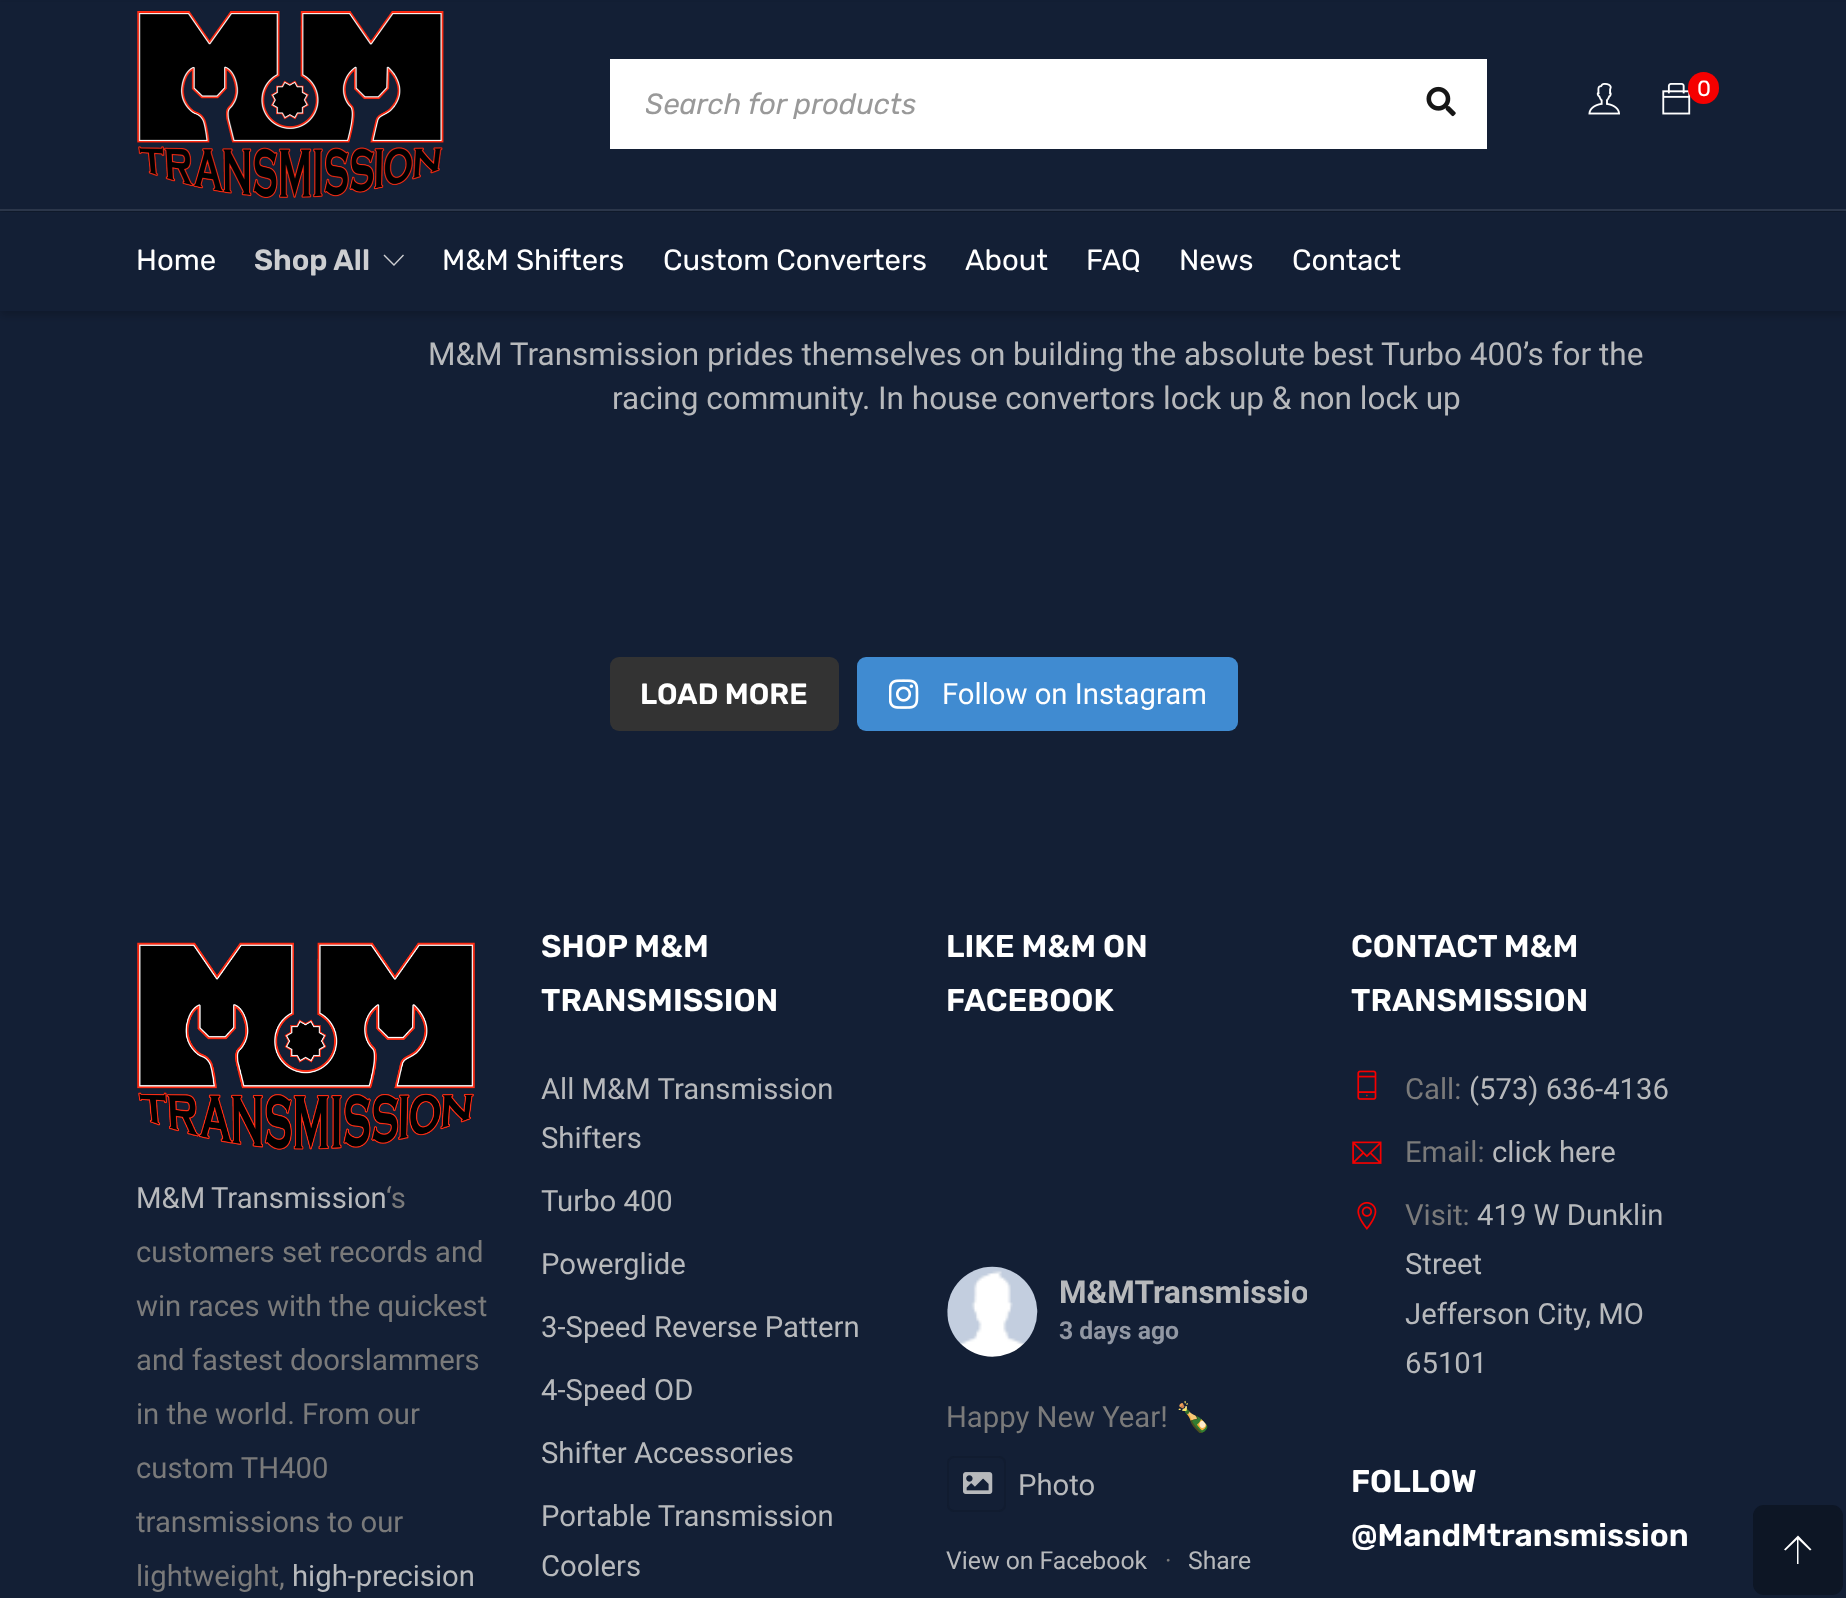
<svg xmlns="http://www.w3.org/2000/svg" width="1846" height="1598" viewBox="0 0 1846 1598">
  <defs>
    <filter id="blur1" x="-50%" y="-200%" width="200%" height="500%"><feGaussianBlur stdDeviation="4.5"/></filter>
    <clipPath id="clip1"><rect x="646" y="86" width="727" height="33"/></clipPath>
    <clipPath id="clip2"><rect x="947" y="1064" width="360" height="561"/></clipPath>
  </defs>
  <rect width="100%" height="100%" fill="#131f35"/>
  <rect x="0" y="5" width="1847" height="310" fill="#000000" fill-opacity="0.2" filter="url(#blur1)"/>
  <rect x="0" y="2" width="1846" height="207" fill="#131f35"/>
  <image x="137" y="11" width="307" height="187" href="img1.png"/>
  <image x="1588" y="83" width="32" height="32" href="img2.png"/>
  <image x="1662" y="83" width="29" height="32" href="img3.png"/>
  <rect x="1688" y="72" width="31" height="32" rx="15.5" fill="#f50000"/>
  <text x="1697" y="96" font-family="Rubik" font-size="22" fill="#ffffff">0</text>
  <rect x="610" y="59" width="877" height="90" fill="#ffffff"/>
  <g clip-path="url(#clip1)">
    <text x="645" y="114" font-family="Rubik" font-size="29.25" font-style="italic" fill="#999999">Search for products</text>
  </g>
  <image x="1426" y="86" width="30" height="31" href="img4.png"/>
  <rect x="0" y="212" width="1846" height="99" fill="#131f35"/>
  <rect x="0" y="209" width="1846" height="2" fill="#2b364a"/>
  <text x="136" y="270" font-family="Rubik" font-size="29.25" fill="#ffffff">Home</text>
  <text x="254" y="270" font-family="Rubik" font-size="29.25" font-weight="600" fill="#cdced1">Shop All</text>
  <path d="M404 255.5L394 266L383.5 255.5L384.5 254.5L394 264L403 254.5Z" fill="#cdced1"/>
  <text x="442" y="270" font-family="Rubik" font-size="29.25" fill="#ffffff">M&amp;M Shifters</text>
  <text x="663" y="270" font-family="Rubik" font-size="29.25" fill="#ffffff">Custom Converters</text>
  <text x="965" y="270" font-family="Rubik" font-size="29.25" fill="#ffffff">About</text>
  <text x="1086" y="270" font-family="Rubik" font-size="29.25" fill="#ffffff">FAQ</text>
  <text x="1179" y="270" font-family="Rubik" font-size="29.25" fill="#ffffff">News</text>
  <text x="1292" y="270" font-family="Rubik" font-size="29.25" fill="#ffffff">Contact</text>
  <text x="428" y="365" font-family="Roboto" font-size="31.5" fill="#b7b9bc">M&amp;M Transmission prides themselves on building the absolute best Turbo 400’s for the</text>
  <text x="612" y="409" font-family="Roboto" font-size="31.5" fill="#b7b9bc">racing community. In house convertors lock up &amp; non lock up</text>
  <rect x="610" y="657" width="229" height="74" rx="9" fill="#333333"/>
  <text x="640" y="704" font-family="Rubik" font-size="29.25" font-weight="600" fill="#ffffff">LOAD MORE</text>
  <rect x="857" y="657" width="381" height="74" rx="9" fill="#408bd1"/>
  <image x="889" y="679" width="30" height="30" href="img5.png"/>
  <text x="942" y="704" font-family="Roboto" font-size="29.25" fill="#ffffff">Follow on Instagram</text>
  <image x="137" y="942" width="338" height="208" href="img6.png"/>
  <text x="136" y="1208" word-spacing="-1" font-family="Roboto" font-size="29.25" fill="#b7b9bc">M&amp;M Transmission</text>
  <text x="386" y="1208" font-family="Roboto" font-size="29.25" fill="#7a7a7a">‘s</text>
  <text x="136" y="1262" font-family="Roboto" font-size="29.25" fill="#7a7a7a">customers set records and</text>
  <text x="136" y="1316" font-family="Roboto" font-size="29.25" fill="#7a7a7a">win races with the quickest</text>
  <text x="136" y="1370" font-family="Roboto" font-size="29.25" fill="#7a7a7a">and fastest doorslammers</text>
  <text x="136" y="1424" font-family="Roboto" font-size="29.25" fill="#7a7a7a">in the world. From our</text>
  <text x="136" y="1478" font-family="Roboto" font-size="29.25" fill="#7a7a7a">custom TH400</text>
  <text x="136" y="1532" font-family="Roboto" font-size="29.25" fill="#7a7a7a">transmissions to our</text>
  <text x="136" y="1586" font-family="Roboto" font-size="29.25" fill="#7a7a7a">lightweight,</text>
  <text x="292" y="1586" font-family="Roboto" font-size="29.25" fill="#b7b9bc">high-precision</text>
  <text x="541" y="957" font-family="Rubik" font-size="31.5" font-weight="600" fill="#ffffff">SHOP M&amp;M</text>
  <text x="541" y="1011" font-family="Rubik" font-size="31.5" font-weight="600" fill="#ffffff">TRANSMISSION</text>
  <text x="541" y="1099" font-family="Roboto" font-size="29.25" fill="#b7b9bc">All M&amp;M Transmission</text>
  <text x="541" y="1148" font-family="Roboto" font-size="29.25" fill="#b7b9bc">Shifters</text>
  <text x="541" y="1211" font-family="Roboto" font-size="29.25" fill="#b7b9bc">Turbo 400</text>
  <text x="541" y="1274" font-family="Roboto" font-size="29.25" fill="#b7b9bc">Powerglide</text>
  <text x="541" y="1337" font-family="Roboto" font-size="29.25" fill="#b7b9bc">3-Speed Reverse Pattern</text>
  <text x="541" y="1400" font-family="Roboto" font-size="29.25" fill="#b7b9bc">4-Speed OD</text>
  <text x="541" y="1463" font-family="Roboto" font-size="29.25" fill="#b7b9bc">Shifter Accessories</text>
  <text x="541" y="1526" font-family="Roboto" font-size="29.25" fill="#b7b9bc">Portable Transmission</text>
  <text x="541" y="1576" font-family="Roboto" font-size="29.25" fill="#b7b9bc">Coolers</text>
  <text x="946" y="957" font-family="Rubik" font-size="31.5" font-weight="600" fill="#ffffff">LIKE M&amp;M ON</text>
  <text x="946" y="1011" font-family="Rubik" font-size="31.5" font-weight="600" fill="#ffffff">FACEBOOK</text>
  <image x="947" y="1266" width="91" height="91" href="img7.png"/>
  <g clip-path="url(#clip2)">
    <text x="1059" y="1303" font-family="Roboto" font-size="31.5" font-weight="bold" fill="#b7b9bc">M&amp;MTransmissio</text>
  </g>
  <text x="1059" y="1339" font-family="Roboto" font-size="24.75" font-weight="bold" fill="#9197a3">3 days ago</text>
  <text x="946" y="1427" font-family="Roboto" font-size="29.25" fill="#7a7a7a">Happy New Year!</text>
  <text x="1175" y="1427" font-family="Noto Color Emoji" font-size="29.25" fill="#7a7a7a">🍾</text>
  <rect x="948" y="1457" width="57" height="54" rx="6" fill="none" stroke="#111c30" stroke-width="2"/>
  <image x="963" y="1472" width="30" height="22" href="img8.png"/>
  <text x="1018" y="1495" font-family="Roboto" font-size="29.25" fill="#b7b9bc">Photo</text>
  <text x="946" y="1569" font-family="Roboto" font-size="24.75" fill="#b7b9bc">View on Facebook</text>
  <text x="1165" y="1569" font-family="Roboto" font-size="24.75" fill="#7a7a7a">·</text>
  <text x="1188" y="1569" font-family="Roboto" font-size="24.75" fill="#b7b9bc">Share</text>
  <text x="1351" y="957" font-family="Rubik" font-size="31.5" font-weight="600" fill="#ffffff">CONTACT M&amp;M</text>
  <text x="1351" y="1011" font-family="Rubik" font-size="31.5" font-weight="600" fill="#ffffff">TRANSMISSION</text>
  <image x="1357" y="1070" width="20" height="30" href="img9.png"/>
  <text x="1405" y="1099" font-family="Roboto" font-size="29.25" fill="#7a7a7a">Call:</text>
  <text x="1469" y="1099" font-family="Roboto" font-size="29.25" fill="#b7b9bc">(573) 636-4136</text>
  <image x="1352" y="1141" width="30" height="23" href="img10.png"/>
  <text x="1405" y="1162" font-family="Roboto" font-size="29.25" fill="#7a7a7a">Email:</text>
  <text x="1492" y="1162" font-family="Roboto" font-size="29.25" fill="#b7b9bc">click here</text>
  <image x="1357" y="1201" width="20" height="29" href="img11.png"/>
  <text x="1405" y="1225" font-family="Roboto" font-size="29.25" fill="#7a7a7a">Visit:</text>
  <text x="1477" y="1225" font-family="Roboto" font-size="29.25" fill="#b7b9bc">419 W Dunklin</text>
  <text x="1405" y="1274" font-family="Roboto" font-size="29.25" fill="#b7b9bc">Street</text>
  <text x="1405" y="1324" font-family="Roboto" font-size="29.25" fill="#b7b9bc">Jefferson City, MO</text>
  <text x="1405" y="1373" font-family="Roboto" font-size="29.25" fill="#b7b9bc">65101</text>
  <text x="1351" y="1492" font-family="Rubik" font-size="31.5" font-weight="600" fill="#ffffff">FOLLOW</text>
  <text x="1351" y="1546" font-family="Rubik" font-size="31.5" font-weight="600" fill="#ffffff">@MandMtransmission</text>
  <rect x="1753" y="1505" width="90" height="90" rx="11" fill="#0d1625"/>
  <path d="M1810 1550.5L1798.5 1539.5V1564H1797V1539.5L1785.5 1550.5L1784 1549.5L1798 1535.5L1811.5 1549.5Z" fill="#ffffff"/>
</svg>
